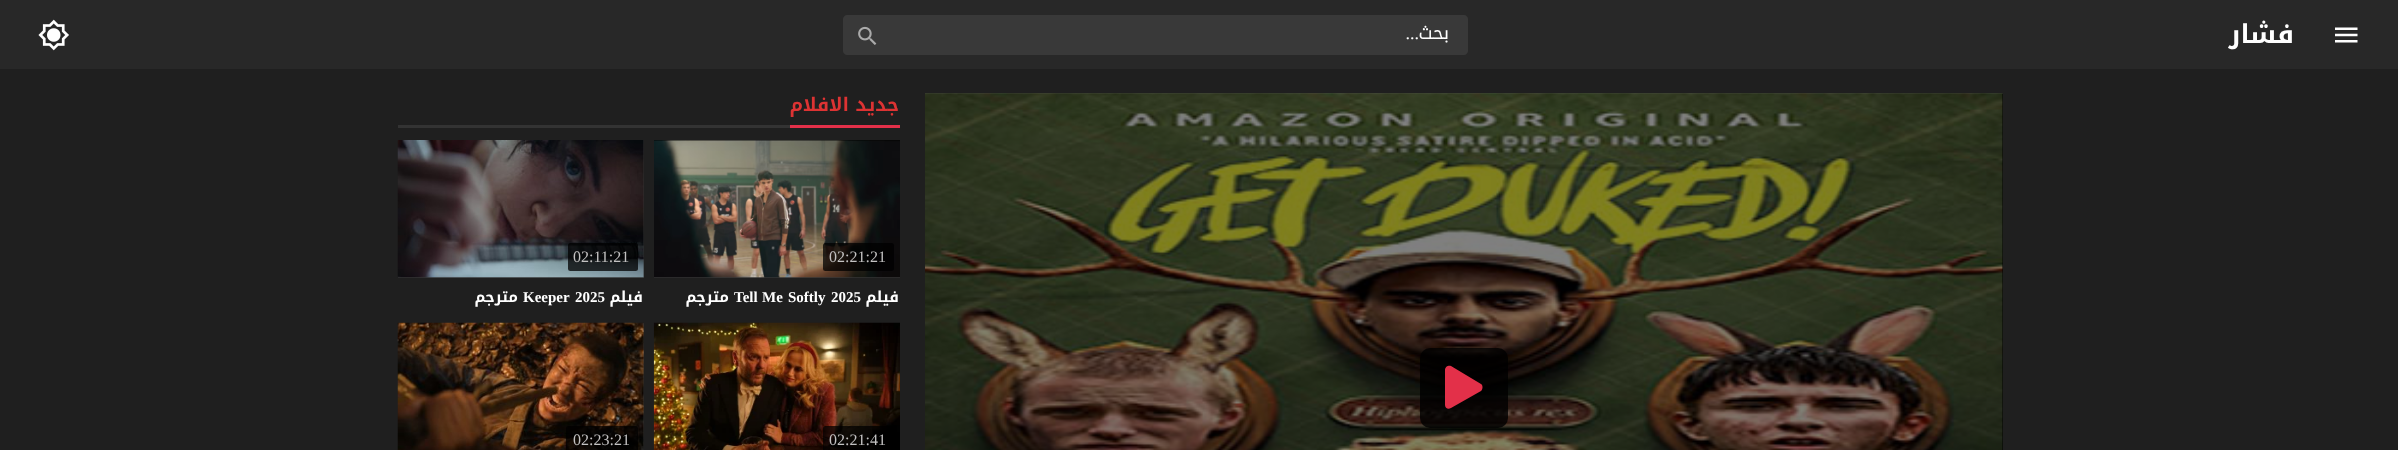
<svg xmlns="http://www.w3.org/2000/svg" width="2398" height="450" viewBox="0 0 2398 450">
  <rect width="100%" height="100%" fill="#1f1f1f"/>
  <rect x="0" y="0" width="2398" height="69" fill="#282828"/>
  <image x="38" y="19" width="31" height="32" href="img1.png"/>
  <path d="M847 15H905V55H847C845 55 843 53 843 51V19C843 17 845 15 847 15Z" fill="#393939"/>
  <image x="858" y="26" width="19" height="19" href="img2.png"/>
  <path d="M905 15H1464C1466 15 1468 17 1468 19V51C1468 53 1466 55 1464 55H905Z" fill="#393939"/>
  <text x="1419" y="39" font-family="Liberation Serif" font-size="18" direction="rtl" fill="#ffffff">...</text>
  <text x="1449" y="39" font-family="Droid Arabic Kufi" font-size="18" direction="rtl" fill="#ffffff">بحث</text>
  <text x="2294" y="43" font-family="Droid Arabic Kufi" font-size="26" font-weight="bold" direction="rtl" fill="#ffffff">فشار</text>
  <image x="2335" y="27" width="23" height="16" href="img3.png"/>
  <rect x="398" y="125" width="392" height="3" fill="#333333"/>
  <rect x="790" y="125" width="110" height="3" fill="#e33049"/>
  <text x="899" y="111" font-family="Droid Arabic Kufi" font-size="18.75" font-weight="bold" direction="rtl" fill="#dd3333">جديد الافلام</text>
  <rect x="398" y="140" width="246" height="138" fill="#363636"/>
  <image x="397" y="140" width="247" height="138" href="img4.png"/>
  <rect x="568" y="243" width="70" height="28" rx="2.5" fill="#000000" fill-opacity="0.75"/>
  <text x="573" y="262" font-family="Liberation Serif" font-size="16" fill="#c3c2c2">02:11:21</text>
  <text x="518" y="302" font-family="Droid Arabic Kufi" font-size="15" font-weight="bold" direction="rtl" fill="#ffffff">مترجم</text>
  <text x="523" y="302" font-family="Liberation Serif" font-size="15" font-weight="bold" fill="#ffffff">Keeper</text>
  <text x="575" y="302" font-family="Liberation Serif" font-size="15" font-weight="bold" fill="#ffffff">2025</text>
  <text x="643" y="302" font-family="Droid Arabic Kufi" font-size="15" font-weight="bold" direction="rtl" fill="#ffffff">فيلم</text>
  <rect x="654" y="277" width="246" height="1" fill="#363636"/>
  <image x="654" y="140" width="246" height="138" href="img5.png"/>
  <rect x="823" y="243" width="71" height="28" rx="2.5" fill="#000000" fill-opacity="0.75"/>
  <text x="829" y="262" font-family="Liberation Serif" font-size="16" fill="#c3c2c2">02:21:21</text>
  <text x="729" y="302" font-family="Droid Arabic Kufi" font-size="15" font-weight="bold" direction="rtl" fill="#ffffff">مترجم</text>
  <text x="734" y="302" font-family="Liberation Serif" font-size="15" font-weight="bold" fill="#ffffff">Tell</text>
  <text x="762" y="302" font-family="Liberation Serif" font-size="15" font-weight="bold" fill="#ffffff">Me</text>
  <text x="788" y="302" font-family="Liberation Serif" font-size="15" font-weight="bold" fill="#ffffff">Softly</text>
  <text x="831" y="302" font-family="Liberation Serif" font-size="15" font-weight="bold" fill="#ffffff">2025</text>
  <text x="899" y="302" font-family="Droid Arabic Kufi" font-size="15" font-weight="bold" direction="rtl" fill="#ffffff">فيلم</text>
  <rect x="643" y="323" width="1" height="127" fill="#363636"/>
  <image x="397" y="322" width="247" height="128" href="img6.png"/>
  <rect x="566" y="426" width="72" height="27" rx="2.5" fill="#000000" fill-opacity="0.75"/>
  <text x="573" y="445" font-family="Liberation Serif" font-size="16" fill="#c3c2c2">02:23:21</text>
  <image x="653" y="322" width="247" height="128" href="img7.png"/>
  <rect x="823" y="426" width="71" height="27" rx="2.5" fill="#000000" fill-opacity="0.75"/>
  <text x="829" y="445" font-family="Liberation Serif" font-size="16" fill="#c3c2c2">02:21:41</text>
  <rect x="925" y="94" width="1078" height="356" fill="#000000"/>
  <image x="925" y="93" width="1078" height="357" href="img8.png"/>
  <rect x="1420" y="348" width="88" height="80" rx="10" fill="#000000" fill-opacity="0.8"/>
  <path d="M1481 384L1451 366C1449 365 1445 366 1445 370V405C1445 408 1448 410 1451 408L1481 391C1483 389 1483 385 1481 384Z" fill="#e33049"/>
</svg>
